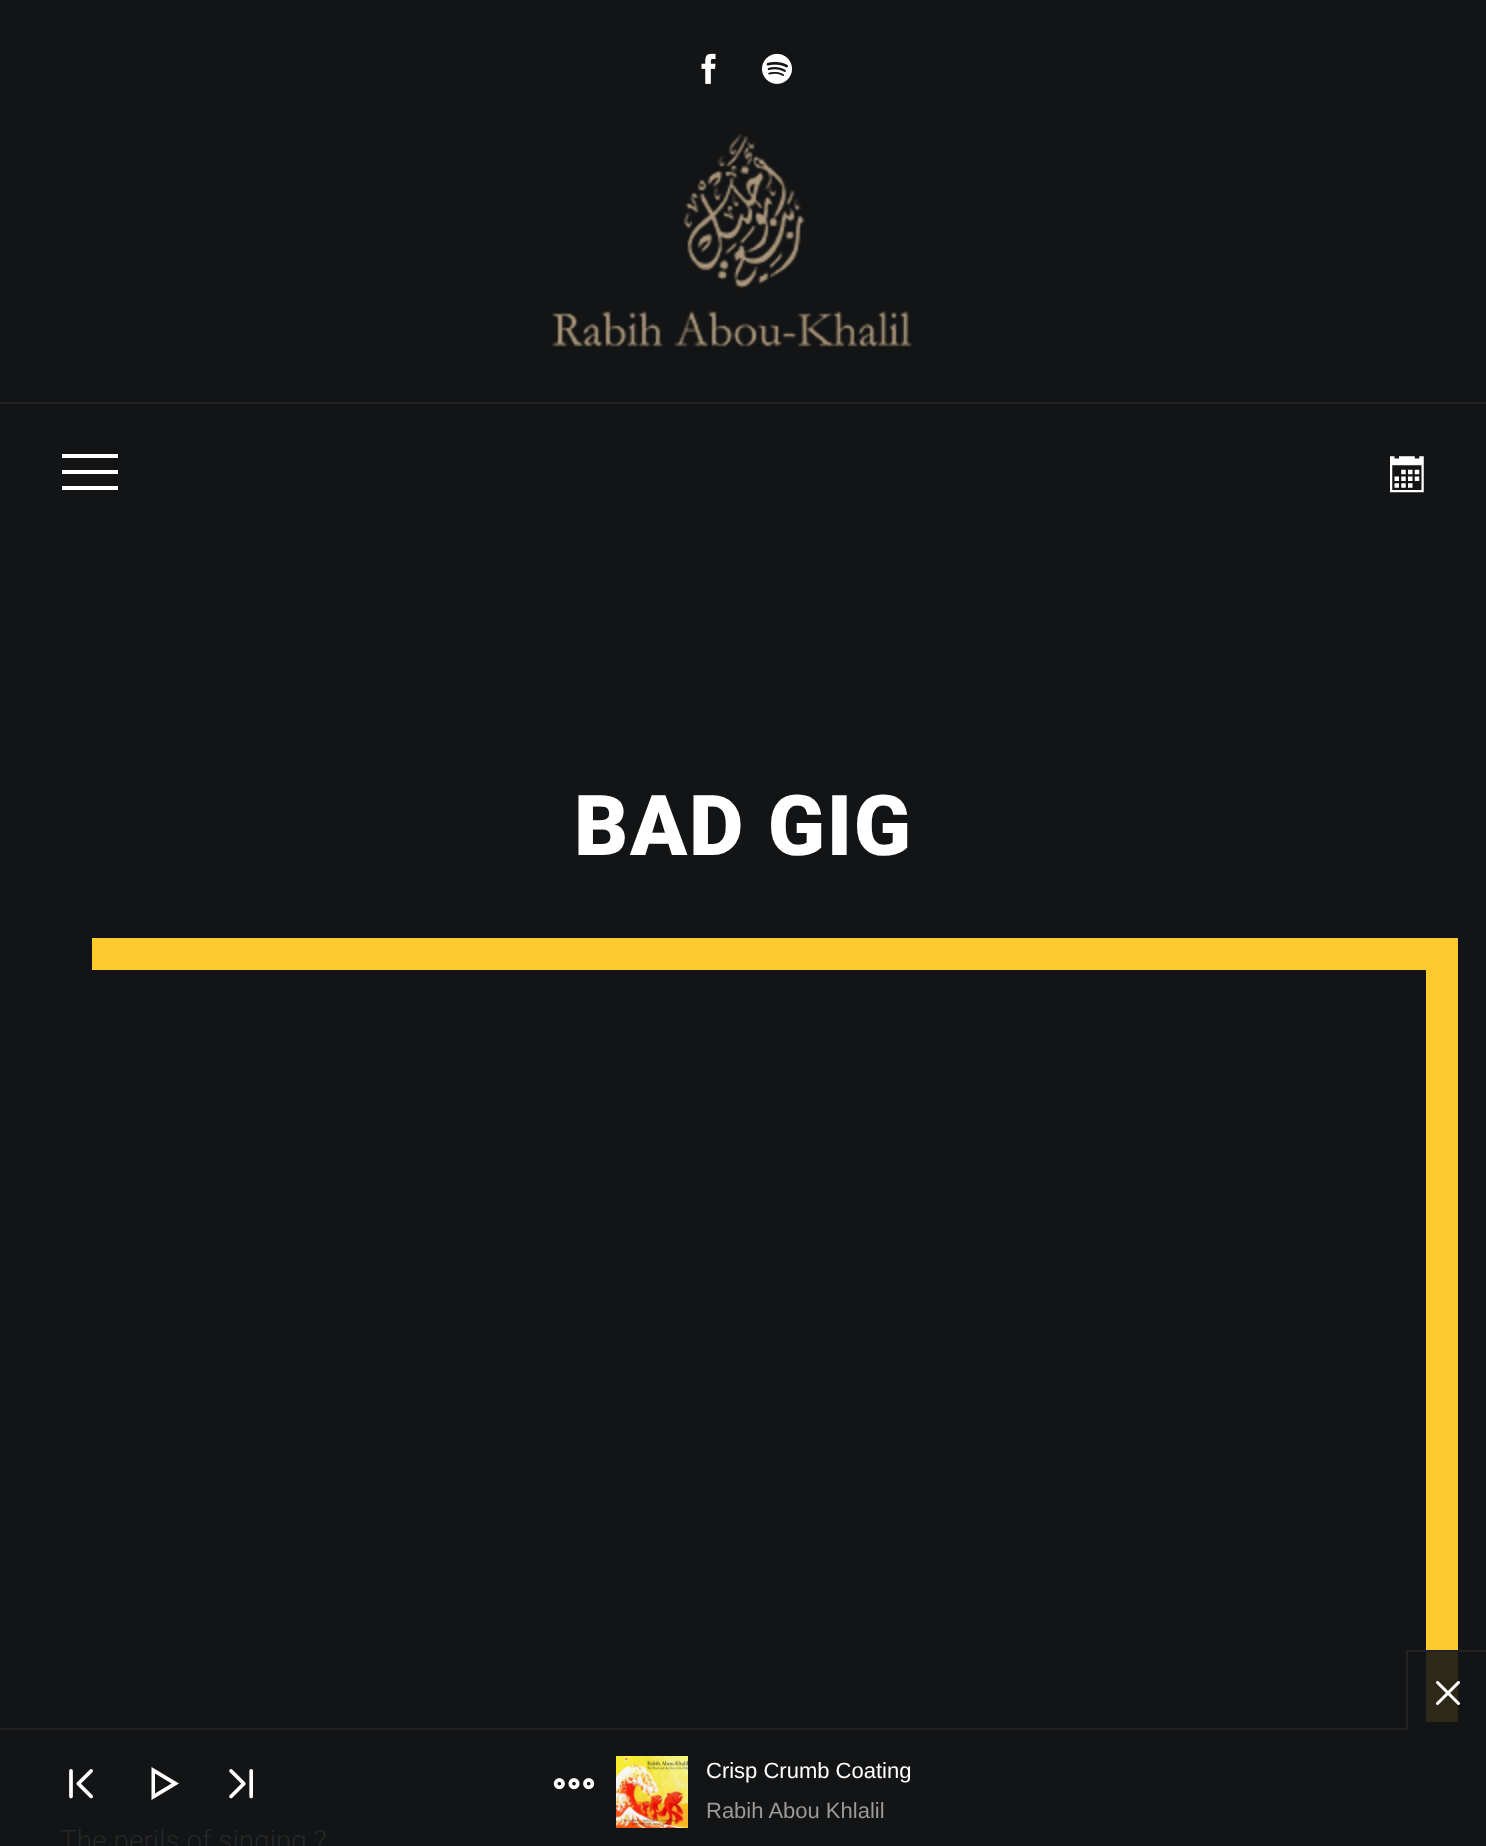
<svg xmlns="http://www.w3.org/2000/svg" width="1486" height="1846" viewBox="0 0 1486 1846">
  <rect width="100%" height="100%" fill="#131415"/>
  <image x="701" y="53" width="15" height="31" href="img1.png"/>
  <image x="762" y="53" width="30" height="31" href="img2.png"/>
  <image x="551" y="134" width="362" height="213" href="img3.png"/>
  <rect x="0" y="402" width="1486" height="2" fill="#222222"/>
  <rect x="62" y="470" width="56" height="4" fill="#ffffff"/>
  <rect x="62" y="454" width="56" height="4" fill="#ffffff"/>
  <rect x="62" y="486" width="56" height="4" fill="#ffffff"/>
  <image x="1390" y="456" width="34" height="37" href="img4.png"/>
  <text x="574" y="855" font-family="Roboto" font-size="84" font-weight="900" letter-spacing="1.75" fill="#ffffff">BAD GIG</text>
  <path d="M92 938V970H1426V1722H1458V938Z" fill="#fcc92f"/>
  <text x="60" y="1850" font-family="Roboto" font-size="28" font-weight="300" fill="#272829">The perils of singing ?</text>
  <rect x="0" y="1728" width="1486" height="2" fill="#222222"/>
  <rect x="1408" y="1652" width="78" height="78" fill="#131415" fill-opacity="0.89"/>
  <rect x="1406" y="1650" width="80" height="2" fill="#222222"/>
  <rect x="1406" y="1650" width="2" height="80" fill="#222222"/>
  <image x="1436" y="1681" width="24" height="24" href="img5.png"/>
  <image x="69" y="1769" width="24" height="30" href="img6.png"/>
  <path d="M151.5 1800V1767L179 1783.5ZM171.5 1783.5L155 1773.5V1793.5Z" fill="#ffffff"/>
  <image x="229" y="1769" width="24" height="30" href="img7.png"/>
  <image x="553" y="1778" width="42" height="12" href="img8.png"/>
  <image x="616" y="1756" width="72" height="72" href="img9.png"/>
  <text x="706" y="1778" font-family="Liberation Sans" font-size="22" fill="#ffffff">Crisp Crumb Coating</text>
  <text x="706" y="1818" font-family="Liberation Sans" font-size="22" fill="#999999">Rabih Abou Khlalil</text>
</svg>
